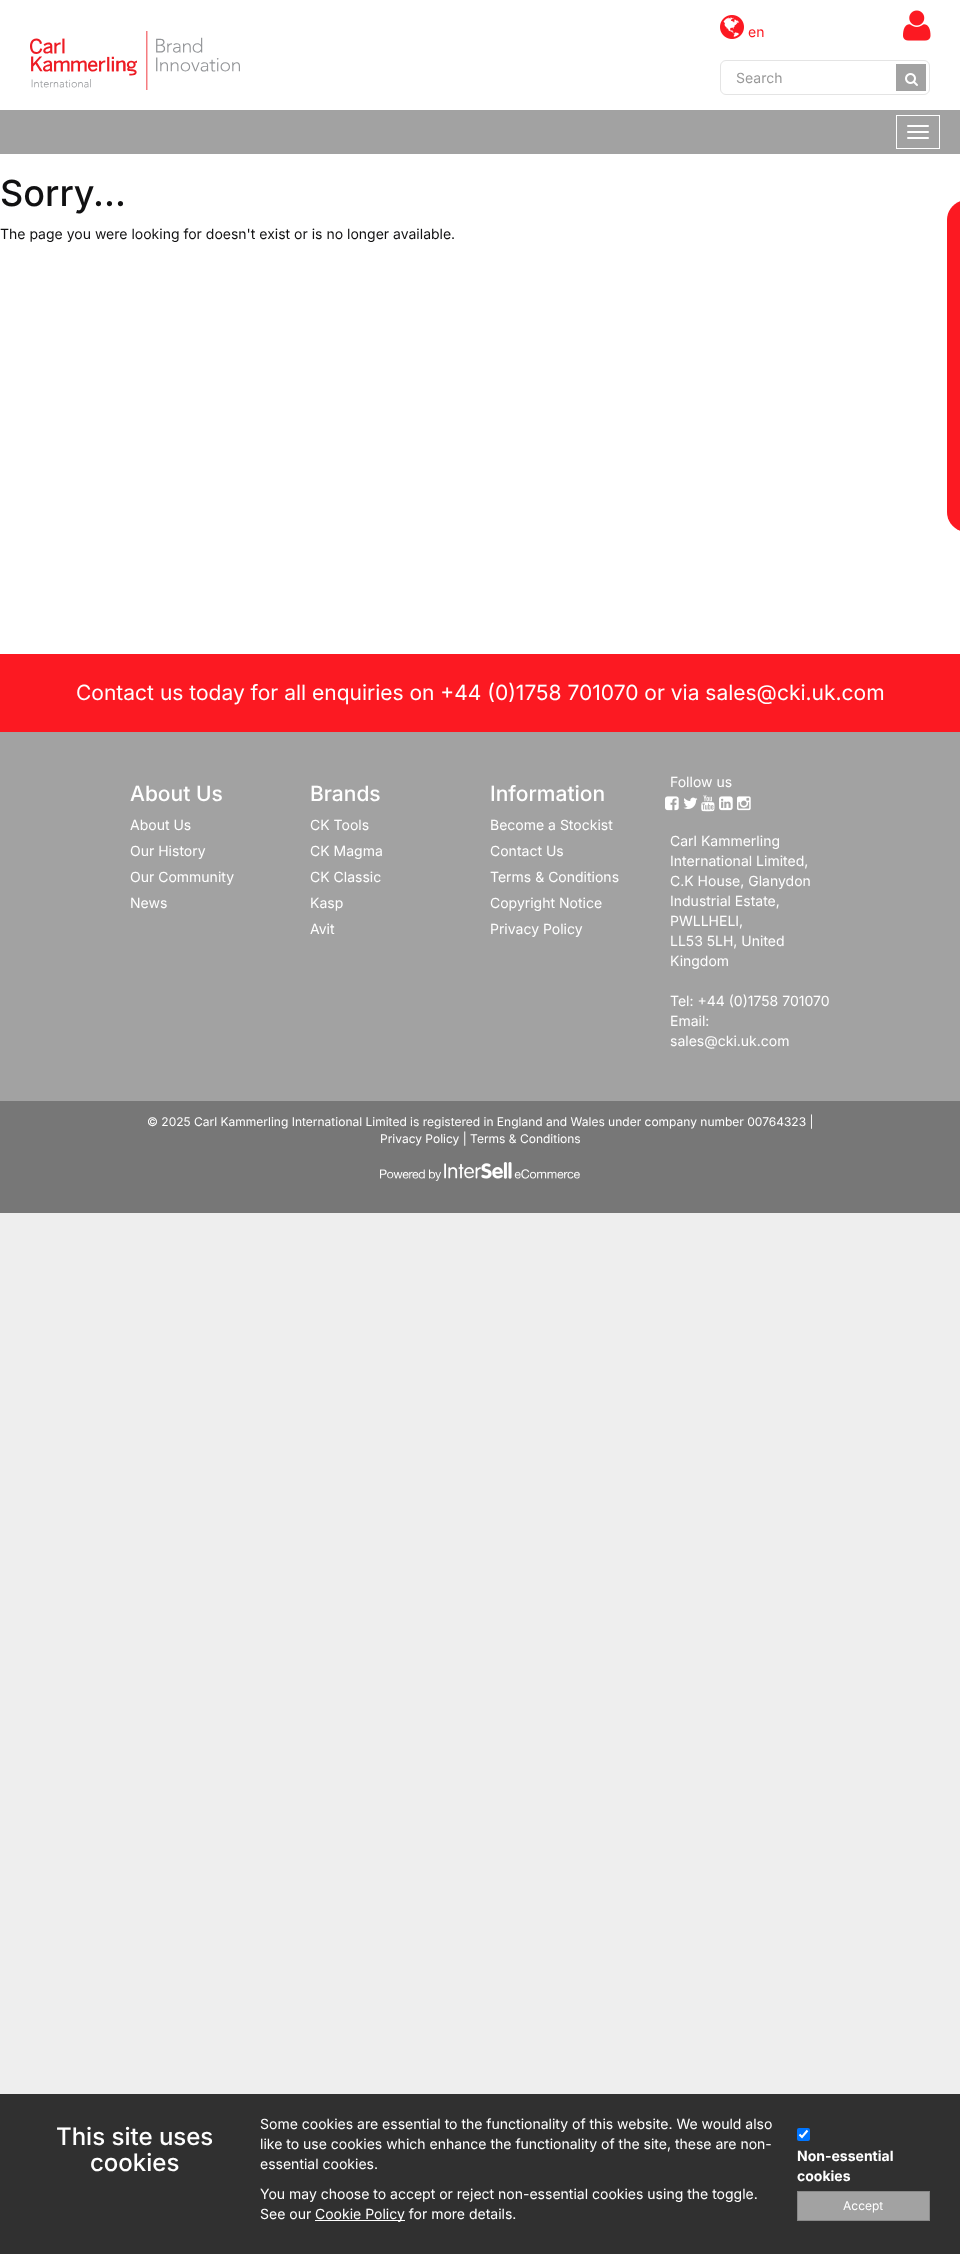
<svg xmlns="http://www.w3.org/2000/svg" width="960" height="2254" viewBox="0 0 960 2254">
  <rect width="100%" height="100%" fill="#eeeeee"/>
  <rect x="0" y="0" width="960" height="110" fill="#ffffff"/>
  <image x="30" y="31" width="210" height="59" href="img1.png"/>
  <image x="720" y="15" width="24" height="24" href="img2.png"/>
  <text x="748" y="37" font-family="Inter" font-size="14" fill="#fc1922">en</text>
  <image x="903" y="10" width="28" height="31" href="img3.png"/>
  <rect x="720.5" y="60.5" width="209" height="34" rx="5.5" fill="none" stroke="#e4e4e4"/>
  <text x="736" y="83" font-family="Inter" font-size="14" fill="#999999">Search</text>
  <rect x="896" y="64" width="30" height="27" fill="#a2a2a2"/>
  <image x="905" y="73" width="13" height="13" href="img4.png"/>
  <rect x="0" y="110" width="960" height="44" fill="#a2a2a2"/>
  <rect x="896.5" y="115.5" width="43" height="33" fill="none" stroke="#ffffff"/>
  <rect x="907" y="125" width="22" height="2" rx="1" fill="#ffffff"/>
  <rect x="907" y="131" width="22" height="2" rx="1" fill="#ffffff"/>
  <rect x="907" y="137" width="22" height="2" rx="1" fill="#ffffff"/>
  <rect x="0" y="154" width="960" height="500" fill="#ffffff"/>
  <text x="0" y="206" font-family="Inter" font-size="36" font-weight="500" fill="#111112">Sorry...</text>
  <text x="0" y="239" font-family="Inter" font-size="14" fill="#111112">The page you were looking for doesn't exist or is no longer available.</text>
  <path d="M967 200H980V532H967C956 532 947 523 947 512V220C947 209 956 200 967 200Z" fill="#fc1922"/>
  <rect x="0" y="654" width="960" height="78" fill="#fc1922"/>
  <text x="76" y="700" font-family="Inter" font-size="21" fill="#ffffff">Contact us today for all enquiries on +44 (0)1758 701070 or via sales@cki.uk.com</text>
  <rect x="0" y="732" width="960" height="369" fill="#a2a2a2"/>
  <text x="130" y="801" font-family="Inter" font-size="21" font-weight="500" fill="#ffffff">About Us</text>
  <text x="130" y="830" font-family="Inter" font-size="14" fill="#ffffff">About Us</text>
  <text x="130" y="856" font-family="Inter" font-size="14" fill="#ffffff">Our History</text>
  <text x="130" y="882" font-family="Inter" font-size="14" fill="#ffffff">Our Community</text>
  <text x="130" y="908" font-family="Inter" font-size="14" fill="#ffffff">News</text>
  <text x="310" y="801" font-family="Inter" font-size="21" font-weight="500" fill="#ffffff">Brands</text>
  <text x="310" y="830" font-family="Inter" font-size="14" fill="#ffffff">CK Tools</text>
  <text x="310" y="856" font-family="Inter" font-size="14" fill="#ffffff">CK Magma</text>
  <text x="310" y="882" font-family="Inter" font-size="14" fill="#ffffff">CK Classic</text>
  <text x="310" y="908" font-family="Inter" font-size="14" fill="#ffffff">Kasp</text>
  <text x="310" y="934" font-family="Inter" font-size="14" fill="#ffffff">Avit</text>
  <text x="490" y="801" font-family="Inter" font-size="21" font-weight="500" fill="#ffffff">Information</text>
  <text x="490" y="830" font-family="Inter" font-size="14" fill="#ffffff">Become a Stockist</text>
  <text x="490" y="856" font-family="Inter" font-size="14" fill="#ffffff">Contact Us</text>
  <text x="490" y="882" font-family="Inter" font-size="14" fill="#ffffff">Terms &amp; Conditions</text>
  <text x="490" y="908" font-family="Inter" font-size="14" fill="#ffffff">Copyright Notice</text>
  <text x="490" y="934" font-family="Inter" font-size="14" fill="#ffffff">Privacy Policy</text>
  <text x="670" y="787" font-family="Inter" font-size="14" fill="#ffffff">Follow us</text>
  <image x="665" y="796" width="14" height="15" href="img5.png"/>
  <image x="683" y="797" width="15" height="12" href="img6.png"/>
  <image x="701" y="795" width="14" height="17" href="img7.png"/>
  <image x="719" y="796" width="14" height="15" href="img8.png"/>
  <image x="737" y="796" width="14" height="15" href="img9.png"/>
  <text x="670" y="846" font-family="Inter" font-size="14" fill="#ffffff">Carl Kammerling</text>
  <text x="670" y="866" font-family="Inter" font-size="14" fill="#ffffff">International Limited,</text>
  <text x="670" y="886" font-family="Inter" font-size="14" fill="#ffffff">C.K House, Glanydon</text>
  <text x="670" y="906" font-family="Inter" font-size="14" fill="#ffffff">Industrial Estate,</text>
  <text x="670" y="926" font-family="Inter" font-size="14" fill="#ffffff">PWLLHELI,</text>
  <text x="670" y="946" font-family="Inter" font-size="14" fill="#ffffff">LL53 5LH, United</text>
  <text x="670" y="966" font-family="Inter" font-size="14" fill="#ffffff">Kingdom</text>
  <text x="670" y="1006" font-family="Inter" font-size="14" fill="#ffffff">Tel: +44 (0)1758 701070</text>
  <text x="670" y="1026" font-family="Inter" font-size="14" fill="#ffffff">Email:</text>
  <text x="670" y="1046" font-family="Inter" font-size="14" fill="#ffffff">sales@cki.uk.com</text>
  <rect x="0" y="1101" width="960" height="112" fill="#777777"/>
  <text x="147" y="1126" font-family="Inter" font-size="12" fill="#ffffff">© 2025 Carl Kammerling International Limited is registered in England and Wales under company number 00764323 |</text>
  <text x="380" y="1143" font-family="Inter" font-size="12" fill="#ffffff">Privacy Policy | Terms &amp; Conditions</text>
  <image x="380" y="1162" width="200" height="19" href="img10.png"/>
  <rect x="0" y="2094" width="960" height="160" fill="#303030"/>
  <text x="56" y="2145" font-family="Inter" font-size="24" font-weight="500" fill="#ffffff">This site uses</text>
  <text x="90" y="2171" font-family="Inter" font-size="24" font-weight="500" fill="#ffffff">cookies</text>
  <text x="260" y="2129" font-family="Inter" font-size="14" fill="#ffffff">Some cookies are essential to the functionality of this website. We would also</text>
  <text x="260" y="2149" font-family="Inter" font-size="14" fill="#ffffff">like to use cookies which enhance the functionality of the site, these are non-</text>
  <text x="260" y="2169" font-family="Inter" font-size="14" fill="#ffffff">essential cookies.</text>
  <text x="260" y="2199" font-family="Inter" font-size="14" fill="#ffffff">You may choose to accept or reject non-essential cookies using the toggle.</text>
  <text x="260" y="2219" font-family="Inter" font-size="14" fill="#ffffff">See our</text>
  <rect x="315" y="2220" width="90" height="1" fill="#ffffff"/>
  <text x="315" y="2219" font-family="Inter" font-size="14" fill="#ffffff">Cookie Policy for more details.</text>
  <rect x="797" y="2128" width="13" height="13" rx="2" fill="#0075ff"/>
  <path d="M799.5 2134.5L802 2137L807.5 2130.5" fill="none" stroke="#ffffff" stroke-width="2.1"/>
  <text x="797" y="2161" font-family="Inter" font-size="14" font-weight="bold" fill="#ffffff">Non-essential</text>
  <text x="797" y="2181" font-family="Inter" font-size="14" font-weight="bold" fill="#ffffff">cookies</text>
  <rect x="797.5" y="2191.5" width="132" height="29" fill="#a2a2a2" stroke="#898989"/>
  <text x="843" y="2210" font-family="Inter" font-size="12" fill="#ffffff">Accept</text>
</svg>
